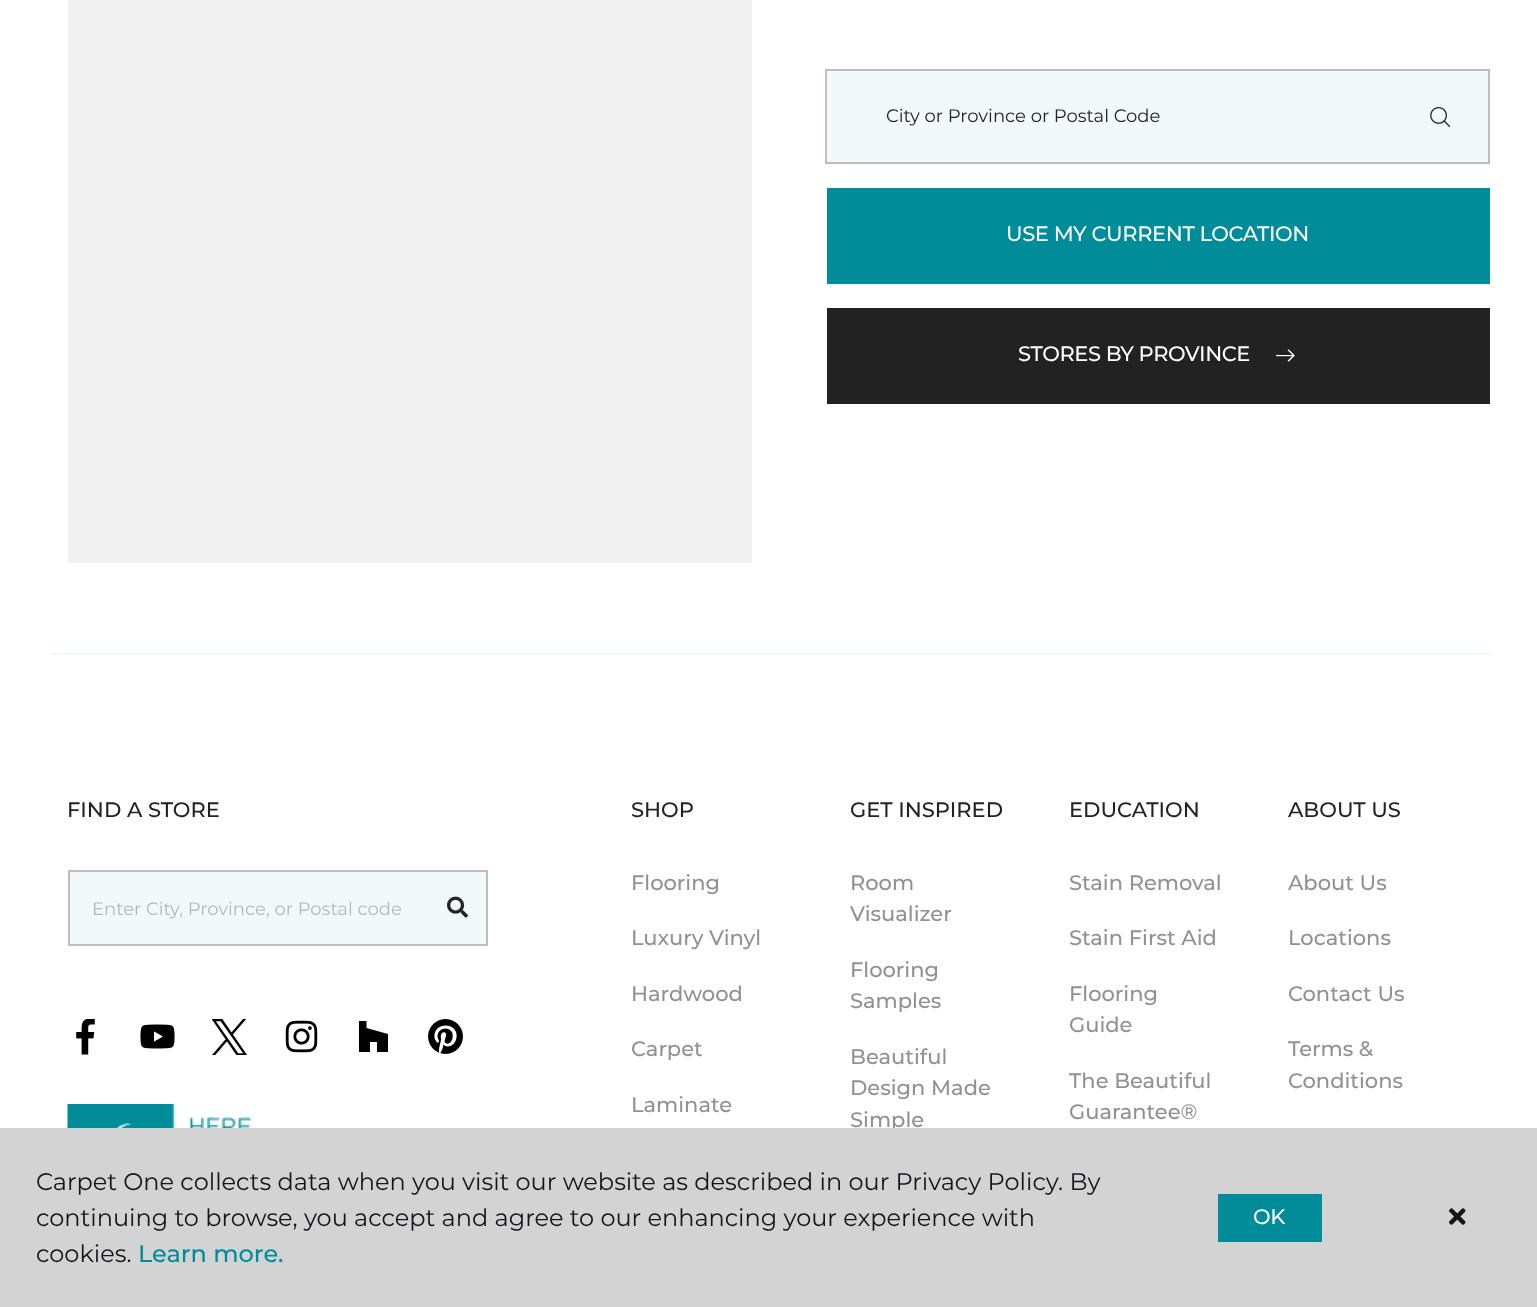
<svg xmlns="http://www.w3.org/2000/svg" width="1537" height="1307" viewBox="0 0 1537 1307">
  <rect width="100%" height="100%" fill="#ffffff"/>
  <rect x="68" y="0" width="684" height="563" fill="#f1f1f1"/>
  <rect x="827" y="71" width="661" height="91" fill="#f2f9fa"/>
  <rect x="825" y="69" width="665" height="2" fill="#bdbdbd"/>
  <rect x="1488" y="69" width="2" height="95" fill="#bdbdbd"/>
  <rect x="825" y="162" width="665" height="2" fill="#bdbdbd"/>
  <image x="1430" y="107" width="21" height="20" href="img1.png"/>
  <rect x="825" y="69" width="2" height="95" fill="#bdbdbd"/>
  <text x="886" y="122" font-family="Montserrat" font-size="18" fill="#222222">City or Province or Postal Code</text>
  <rect x="827" y="188" width="663" height="96" fill="#008c99"/>
  <text x="1006" y="241" font-family="Montserrat" font-size="21" font-weight="500" letter-spacing="-0.4" fill="#ffffff">USE MY CURRENT LOCATION</text>
  <rect x="827" y="308" width="663" height="96" fill="#222222"/>
  <text x="1018" y="361" font-family="Montserrat" font-size="21" font-weight="500" letter-spacing="-0.4" fill="#ffffff">STORES BY PROVINCE</text>
  <image x="1276" y="349" width="19" height="13" href="img2.png"/>
  <rect x="50" y="653" width="1440" height="2" fill="#f2f9fa"/>
  <text x="67" y="817" font-family="Montserrat" font-size="21" font-weight="500" fill="#222222">FIND A STORE</text>
  <rect x="70" y="872" width="416" height="72" fill="#f2f9fa"/>
  <rect x="68" y="870" width="420" height="2" fill="#bdbdbd"/>
  <rect x="68" y="944" width="363" height="2" fill="#bdbdbd"/>
  <rect x="68" y="870" width="2" height="75" fill="#bdbdbd"/>
  <text x="92" y="915" font-family="Montserrat" font-size="18" fill="#b4b9b9">Enter City, Province, or Postal code</text>
  <rect x="486" y="870" width="2" height="75" fill="#bdbdbd"/>
  <rect x="429" y="944" width="59" height="2" fill="#bdbdbd"/>
  <image x="447" y="896" width="21" height="22" href="img3.png"/>
  <image x="76" y="1019" width="19" height="36" href="img4.png"/>
  <image x="140" y="1024" width="35" height="25" href="img5.png"/>
  <image x="212" y="1019" width="35" height="36" href="img6.png"/>
  <image x="285" y="1020" width="33" height="33" href="img7.png"/>
  <path d="M377 1042H370V1052H359V1021H366.5V1028L388 1034V1052H377Z" fill="#000000"/>
  <image x="428" y="1019" width="35" height="35" href="img8.png"/>
  <image x="67" y="1104" width="184" height="24" href="img9.png"/>
  <text x="631" y="817" font-family="Montserrat" font-size="21" font-weight="500" fill="#222222">SHOP</text>
  <text x="631" y="890" font-family="Montserrat" font-size="21" font-weight="500" fill="#919191">Flooring</text>
  <text x="631" y="945" font-family="Montserrat" font-size="21" font-weight="500" fill="#919191">Luxury Vinyl</text>
  <text x="631" y="1001" font-family="Montserrat" font-size="21" font-weight="500" fill="#919191">Hardwood</text>
  <text x="631" y="1056" font-family="Montserrat" font-size="21" font-weight="500" fill="#919191">Carpet</text>
  <text x="631" y="1112" font-family="Montserrat" font-size="21" font-weight="500" fill="#919191">Laminate</text>
  <text x="850" y="817" font-family="Montserrat" font-size="21" font-weight="500" fill="#222222">GET INSPIRED</text>
  <text x="850" y="890" font-family="Montserrat" font-size="21" font-weight="500" fill="#919191">Room</text>
  <text x="850" y="921" font-family="Montserrat" font-size="21" font-weight="500" fill="#919191">Visualizer</text>
  <text x="850" y="977" font-family="Montserrat" font-size="21" font-weight="500" fill="#919191">Flooring</text>
  <text x="850" y="1008" font-family="Montserrat" font-size="21" font-weight="500" fill="#919191">Samples</text>
  <text x="850" y="1064" font-family="Montserrat" font-size="21" font-weight="500" fill="#919191">Beautiful</text>
  <text x="850" y="1095" font-family="Montserrat" font-size="21" font-weight="500" fill="#919191">Design Made</text>
  <text x="850" y="1127" font-family="Montserrat" font-size="21" font-weight="500" fill="#919191">Simple</text>
  <text x="1069" y="817" font-family="Montserrat" font-size="21" font-weight="500" fill="#222222">EDUCATION</text>
  <text x="1069" y="890" font-family="Montserrat" font-size="21" font-weight="500" fill="#919191">Stain Removal</text>
  <text x="1069" y="945" font-family="Montserrat" font-size="21" font-weight="500" fill="#919191">Stain First Aid</text>
  <text x="1069" y="1001" font-family="Montserrat" font-size="21" font-weight="500" fill="#919191">Flooring</text>
  <text x="1069" y="1032" font-family="Montserrat" font-size="21" font-weight="500" fill="#919191">Guide</text>
  <text x="1069" y="1088" font-family="Montserrat" font-size="21" font-weight="500" fill="#919191">The Beautiful</text>
  <text x="1069" y="1119" font-family="Montserrat" font-size="21" font-weight="500" fill="#919191">Guarantee®</text>
  <text x="1288" y="817" font-family="Montserrat" font-size="21" font-weight="500" fill="#222222">ABOUT US</text>
  <text x="1288" y="890" font-family="Montserrat" font-size="21" font-weight="500" fill="#919191">About Us</text>
  <text x="1288" y="945" font-family="Montserrat" font-size="21" font-weight="500" fill="#919191">Locations</text>
  <text x="1288" y="1001" font-family="Montserrat" font-size="21" font-weight="500" fill="#919191">Contact Us</text>
  <text x="1288" y="1056" font-family="Montserrat" font-size="21" font-weight="500" fill="#919191">Terms &amp;</text>
  <text x="1288" y="1088" font-family="Montserrat" font-size="21" font-weight="500" fill="#919191">Conditions</text>
  <rect x="0" y="1128" width="1537" height="179" fill="#d3d3d4"/>
  <text x="36" y="1190" font-family="Montserrat" font-size="24" fill="#141619">Carpet One collects data when you visit our website as described in our Privacy Policy. By</text>
  <text x="36" y="1226" font-family="Montserrat" font-size="24" fill="#141619">continuing to browse, you accept and agree to our enhancing your experience with</text>
  <text x="36" y="1262" font-family="Montserrat" font-size="24" fill="#141619">cookies.</text>
  <text x="138" y="1262" font-family="Montserrat" font-size="24" font-weight="500" fill="#008c99">Learn more.</text>
  <rect x="1218" y="1194" width="104" height="48" fill="#008c99"/>
  <text x="1253" y="1224" font-family="Montserrat" font-size="21" font-weight="500" letter-spacing="-0.4" fill="#ffffff">OK</text>
  <image x="1449" y="1208" width="17" height="17" href="img10.png"/>
</svg>
